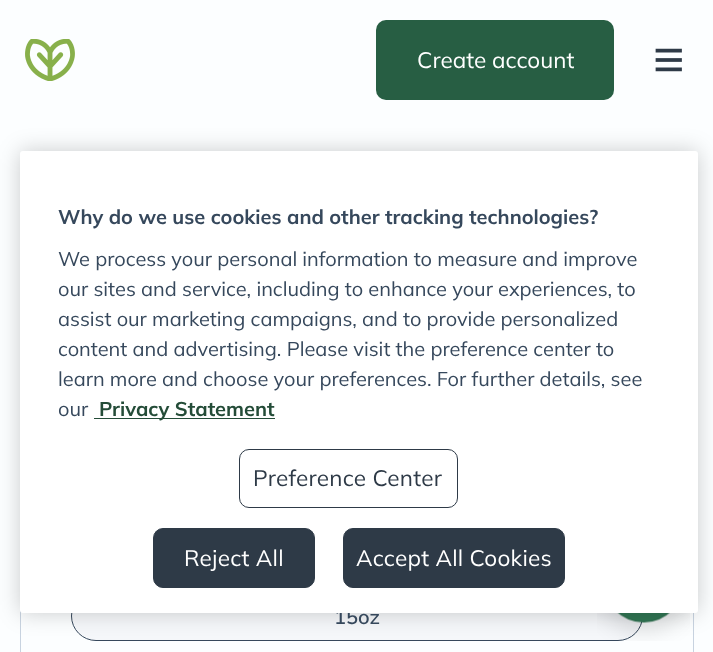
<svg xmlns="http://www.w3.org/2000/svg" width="713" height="652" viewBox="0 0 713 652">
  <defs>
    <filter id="blur1" x="-50%" y="-200%" width="200%" height="500%"><feGaussianBlur stdDeviation="11"/></filter>
  </defs>
  <rect width="100%" height="100%" fill="#fcfeff"/>
  <image x="25" y="39" width="50" height="42" href="img1.png"/>
  <rect x="376" y="20" width="238" height="80" rx="10" fill="#275e43"/>
  <text x="417" y="68" font-family="Mulish" font-size="22.5" fill="#ffffff">Create account</text>
  <image x="655" y="48" width="27" height="24" href="img2.png"/>
  <rect x="20.5" y="233.5" width="673" height="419" fill="none" stroke="#c8d3e0"/>
  <rect x="71.5" y="591.5" width="571" height="49" rx="24.5" fill="#f5f7fa" stroke="#36485c"/>
  <image x="597" y="613" width="93" height="28" href="img3.png"/>
  <rect x="20" y="151" width="678" height="462" rx="3" fill="#000000" fill-opacity="0.2" filter="url(#blur1)"/>
  <text x="334" y="624" font-family="Mulish" font-size="20" font-weight="600" fill="#36485c">15oz</text>
  <rect x="20" y="151" width="678" height="462" rx="3" fill="#ffffff"/>
  <text x="58" y="224" font-family="Mulish" font-size="20" font-weight="bold" fill="#36485c">Why do we use cookies and other tracking technologies?</text>
  <text x="58" y="266" font-family="Mulish" font-size="20" fill="#36485c">We process your personal information to measure and improve</text>
  <text x="58" y="296" font-family="Mulish" font-size="20" fill="#36485c">our sites and service, including to enhance your experiences, to</text>
  <text x="58" y="326" font-family="Mulish" font-size="20" fill="#36485c">assist our marketing campaigns, and to provide personalized</text>
  <text x="58" y="356" font-family="Mulish" font-size="20" fill="#36485c">content and advertising. Please visit the preference center to</text>
  <text x="58" y="386" font-family="Mulish" font-size="20" fill="#36485c">learn more and choose your preferences. For further details, see</text>
  <text x="58" y="416" font-family="Mulish" font-size="20" fill="#36485c">our</text>
  <rect x="94" y="418" width="181" height="1" fill="#244c38"/>
  <text x="99" y="416" font-family="Mulish" font-size="20" font-weight="bold" fill="#244c38">Privacy Statement</text>
  <rect x="239.5" y="449.5" width="218" height="58" rx="9.5" fill="none" stroke="#2e3a47"/>
  <text x="253" y="486" font-family="Mulish" font-size="22.5" letter-spacing="0.25" fill="#2e3a47">Preference Center</text>
  <rect x="153.5" y="528.5" width="161" height="59" rx="9.5" fill="#2e3a47" stroke="#2e3a47"/>
  <text x="184" y="566" font-family="Mulish" font-size="22.5" letter-spacing="0.25" fill="#ffffff">Reject All</text>
  <rect x="343.5" y="528.5" width="221" height="59" rx="9.5" fill="#2e3a47" stroke="#2e3a47"/>
  <text x="356" y="566" font-family="Mulish" font-size="22.5" letter-spacing="0.25" fill="#ffffff">Accept All Cookies</text>
</svg>
